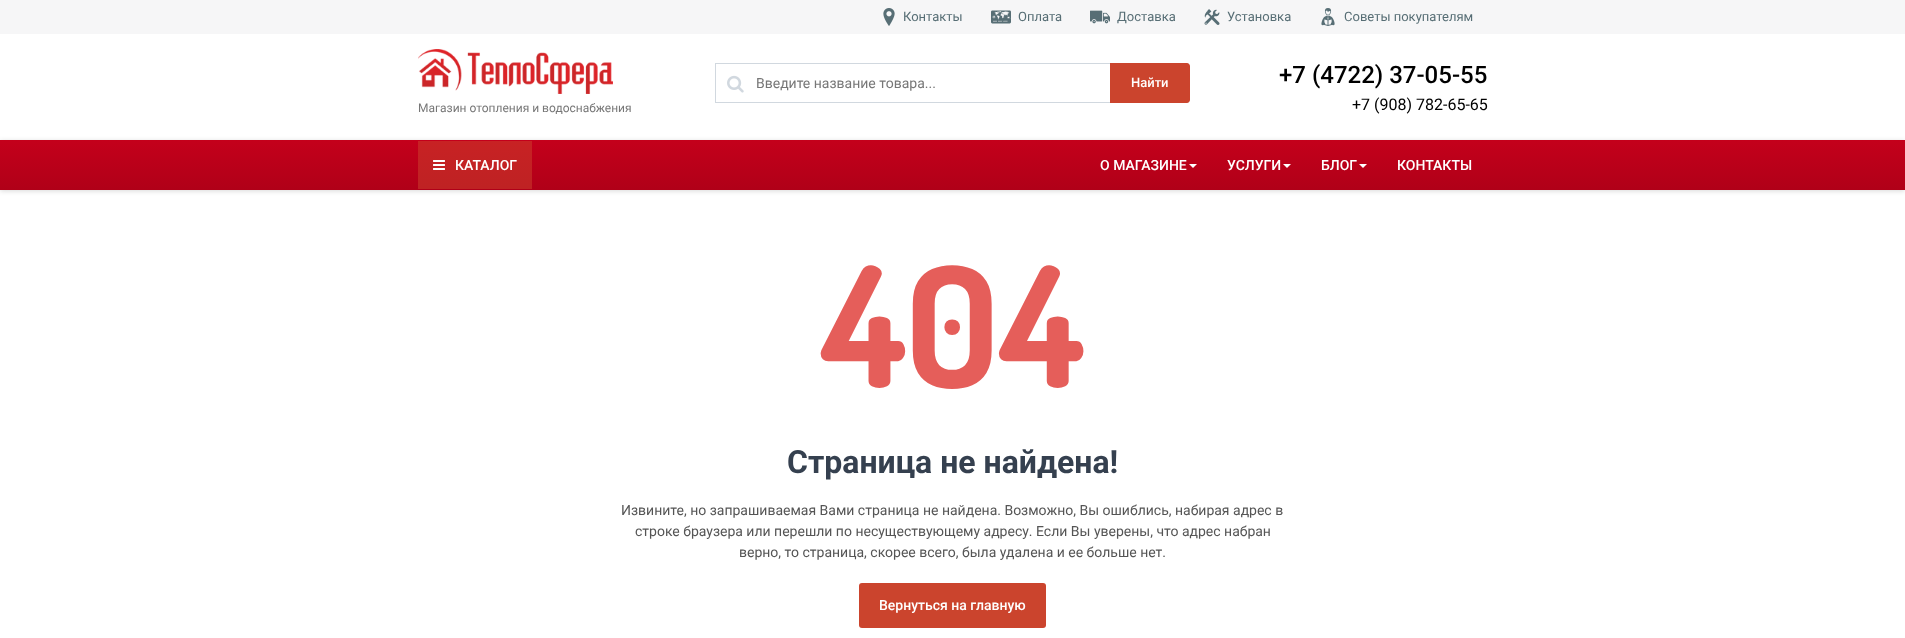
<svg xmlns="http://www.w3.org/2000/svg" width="1905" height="638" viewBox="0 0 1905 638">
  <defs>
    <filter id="blur1" x="-50%" y="-200%" width="200%" height="500%"><feGaussianBlur stdDeviation="2.5"/></filter>
    <linearGradient id="g1" gradientUnits="userSpaceOnUse" x1="953" y1="140" x2="953" y2="190"><stop offset="0" stop-color="#c4001b"/><stop offset="1" stop-color="#b00018"/></linearGradient>
    <linearGradient id="g2" gradientUnits="userSpaceOnUse" x1="953" y1="140" x2="953" y2="190"><stop offset="0" stop-color="#c82224"/><stop offset="1" stop-color="#be2223"/></linearGradient>
  </defs>
  <rect width="100%" height="100%" fill="#ffffff"/>
  <rect x="0" y="0" width="1905" height="34" fill="#f6f6f7"/>
  <image x="883" y="8" width="12" height="18" href="img1.png"/>
  <text x="903" y="21" font-family="Roboto" font-size="13" fill="#576e75">Контакты</text>
  <image x="991" y="10" width="20" height="14" href="img2.png"/>
  <text x="1018" y="21" font-family="Roboto" font-size="13" fill="#576e75">Оплата</text>
  <image x="1090" y="10" width="20" height="14" href="img3.png"/>
  <text x="1117" y="21" font-family="Roboto" font-size="13" fill="#576e75">Доставка</text>
  <image x="1204" y="9" width="16" height="16" href="img4.png"/>
  <text x="1227" y="21" font-family="Roboto" font-size="13" fill="#576e75">Установка</text>
  <image x="1321" y="8" width="14" height="18" href="img5.png"/>
  <text x="1344" y="21" font-family="Roboto" font-size="13" fill="#576e75">Советы покупателям</text>
  <image x="727" y="75" width="17" height="18" href="img6.png"/>
  <rect x="715" y="63" width="395" height="1" fill="#d1d8df"/>
  <rect x="715" y="102" width="395" height="1" fill="#d1d8df"/>
  <rect x="715" y="63" width="1" height="40" fill="#d1d8df"/>
  <text x="756" y="88" font-family="Roboto" font-size="14" fill="#777777">Введите название товара...</text>
  <path d="M1110 63H1187C1188.5 63 1190 64.5 1190 66V100C1190 101.5 1188.5 103 1187 103H1110Z" fill="#cb442d"/>
  <text x="1131" y="87" font-family="Roboto" font-size="13" font-weight="500" fill="#ffffff">Найти</text>
  <text x="1279" y="83" font-family="Roboto" font-size="24" font-weight="500" fill="#000000">+7 (4722) 37-05-55</text>
  <text x="1352" y="110" font-family="Roboto" font-size="16" fill="#000000">+7 (908) 782-65-65</text>
  <image x="418" y="49" width="195" height="45" href="img7.png"/>
  <text x="418" y="112" font-family="Roboto" font-size="12" fill="#777777">Магазин отопления и водоснабжения</text>
  <rect x="0" y="141" width="1905" height="50" fill="#000000" fill-opacity="0.15" filter="url(#blur1)"/>
  <rect x="0" y="140" width="1905" height="50" fill="url(#g1)"/>
  <rect x="418" y="141" width="114" height="48" fill="url(#g2)"/>
  <image x="433" y="160" width="12" height="10" href="img8.png"/>
  <text x="455" y="170" font-family="Roboto" font-size="14" font-weight="500" fill="#ffffff">КАТАЛОГ</text>
  <text x="1100" y="170" font-family="Roboto" font-size="14" font-weight="500" fill="#ffffff">О МАГАЗИНЕ</text>
  <path d="M1189 164H1197L1193 168Z" fill="#ffffff"/>
  <text x="1227" y="170" font-family="Roboto" font-size="14" font-weight="500" fill="#ffffff">УСЛУГИ</text>
  <path d="M1283 164H1291L1287 168Z" fill="#ffffff"/>
  <text x="1321" y="170" font-family="Roboto" font-size="14" font-weight="500" fill="#ffffff">БЛОГ</text>
  <path d="M1359 164H1367L1363 168Z" fill="#ffffff"/>
  <text x="1397" y="170" font-family="Roboto" font-size="14" font-weight="500" fill="#ffffff">КОНТАКТЫ</text>
  <text x="821" y="388" font-family="Dosis" font-size="168" font-weight="bold" fill="#e55e5a">404</text>
  <text x="787" y="473" font-family="Roboto" font-size="32" font-weight="bold" fill="#35404f">Страница не найдена!</text>
  <text x="621" y="515" font-family="Roboto" font-size="14" fill="#555555">Извините, но запрашиваемая Вами страница не найдена. Возможно, Вы ошиблись, набирая адрес в</text>
  <text x="635" y="536" font-family="Roboto" font-size="14" fill="#555555">строке браузера или перешли по несуществующему адресу. Если Вы уверены, что адрес набран</text>
  <text x="739" y="557" font-family="Roboto" font-size="14" fill="#555555">верно, то страница, скорее всего, была удалена и ее больше нет.</text>
  <rect x="859" y="583" width="187" height="45" rx="3" fill="#cb442d"/>
  <text x="879" y="610" font-family="Roboto" font-size="14" font-weight="500" fill="#ffffff">Вернуться на главную</text>
</svg>
